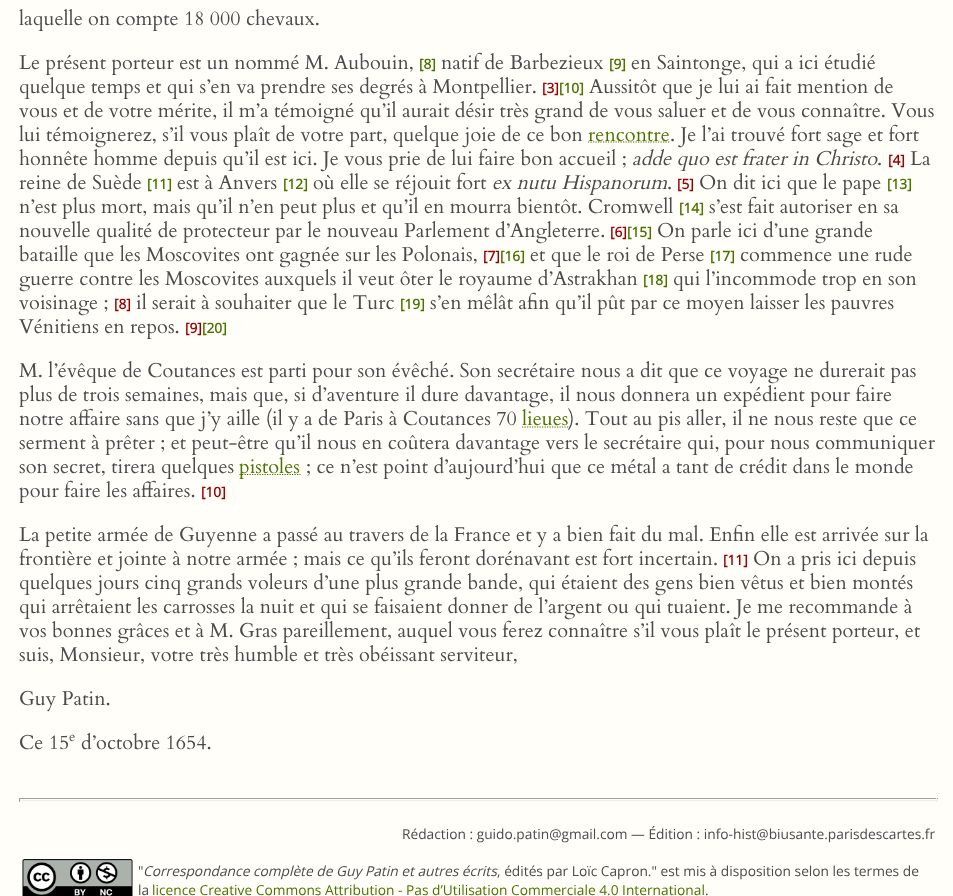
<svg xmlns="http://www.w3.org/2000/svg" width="953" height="896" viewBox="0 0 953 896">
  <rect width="100%" height="100%" fill="#fffef9"/>
  <text x="19" y="25" font-family="Cardo" font-size="20" fill="#4b4b4b">laquelle on compte 18 000 chevaux.</text>
  <text x="19" y="69" font-family="Cardo" font-size="20" fill="#4b4b4b">Le présent porteur est un nommé M. Aubouin,</text>
  <text x="419" y="69" font-family="Open Sans" font-size="13.75" font-weight="bold" fill="#4b7300">[8]</text>
  <text x="441" y="69" font-family="Cardo" font-size="20" fill="#4b4b4b">natif de Barbezieux</text>
  <text x="609" y="69" font-family="Open Sans" font-size="13.75" font-weight="bold" fill="#4b7300">[9]</text>
  <text x="631" y="69" font-family="Cardo" font-size="20" fill="#4b4b4b">en Saintonge, qui a ici étudié</text>
  <text x="19" y="93" font-family="Cardo" font-size="20" fill="#4b4b4b">quelque temps et qui s’en va prendre ses degrés à Montpellier.</text>
  <text x="542" y="93" font-family="Open Sans" font-size="13.75" font-weight="bold" fill="#990000">[3]</text>
  <text x="559" y="93" font-family="Open Sans" font-size="13.75" font-weight="bold" fill="#4b7300">[10]</text>
  <text x="589" y="93" font-family="Cardo" font-size="20" fill="#4b4b4b">Aussitôt que je lui ai fait mention de</text>
  <text x="19" y="117" font-family="Cardo" font-size="20" fill="#4b4b4b">vous et de votre mérite, il m’a témoigné qu’il aurait désir très grand de vous saluer et de vous connaître. Vous</text>
  <text x="19" y="141" font-family="Cardo" font-size="20" fill="#4b4b4b">lui témoignerez, s’il vous plaît de votre part, quelque joie de ce bon</text>
  <path d="M588 142H670" fill="none" stroke="#4b7300" stroke-width="1.2" stroke-dasharray="1.25 1.25"/>
  <text x="588" y="141" font-family="Cardo" font-size="20" fill="#4b7300">rencontre</text>
  <text x="670" y="141" font-family="Cardo" font-size="20" fill="#4b4b4b">. Je l’ai trouvé fort sage et fort</text>
  <text x="19" y="165" font-family="Cardo" font-size="20" fill="#4b4b4b">honnête homme depuis qu’il est ici. Je vous prie de lui faire bon accueil ;</text>
  <text x="632" y="165" font-family="Cardo" font-size="20" font-style="italic" fill="#4b4b4b">adde quo est frater in Christo</text>
  <text x="877" y="165" font-family="Cardo" font-size="20" fill="#4b4b4b">.</text>
  <text x="888" y="165" font-family="Open Sans" font-size="13.75" font-weight="bold" fill="#990000">[4]</text>
  <text x="910" y="165" font-family="Cardo" font-size="20" fill="#4b4b4b">La</text>
  <text x="19" y="189" font-family="Cardo" font-size="20" fill="#4b4b4b">reine de Suède</text>
  <text x="147" y="189" font-family="Open Sans" font-size="13.75" font-weight="bold" fill="#4b7300">[11]</text>
  <text x="177" y="189" font-family="Cardo" font-size="20" fill="#4b4b4b">est à Anvers</text>
  <text x="283" y="189" font-family="Open Sans" font-size="13.75" font-weight="bold" fill="#4b7300">[12]</text>
  <text x="313" y="189" font-family="Cardo" font-size="20" fill="#4b4b4b">où elle se réjouit fort</text>
  <text x="492" y="189" font-family="Cardo" font-size="20" font-style="italic" fill="#4b4b4b">ex nutu Hispanorum</text>
  <text x="667" y="189" font-family="Cardo" font-size="20" fill="#4b4b4b">.</text>
  <text x="677" y="189" font-family="Open Sans" font-size="13.75" font-weight="bold" fill="#990000">[5]</text>
  <text x="699" y="189" font-family="Cardo" font-size="20" fill="#4b4b4b">On dit ici que le pape</text>
  <text x="887" y="189" font-family="Open Sans" font-size="13.75" font-weight="bold" fill="#4b7300">[13]</text>
  <text x="19" y="213" font-family="Cardo" font-size="20" fill="#4b4b4b">n’est plus mort, mais qu’il n’en peut plus et qu’il en mourra bientôt. Cromwell</text>
  <text x="679" y="213" font-family="Open Sans" font-size="13.75" font-weight="bold" fill="#4b7300">[14]</text>
  <text x="709" y="213" font-family="Cardo" font-size="20" fill="#4b4b4b">s’est fait autoriser en sa</text>
  <text x="19" y="237" font-family="Cardo" font-size="20" fill="#4b4b4b">nouvelle qualité de protecteur par le nouveau Parlement d’Angleterre.</text>
  <text x="610" y="237" font-family="Open Sans" font-size="13.75" font-weight="bold" fill="#990000">[6]</text>
  <text x="627" y="237" font-family="Open Sans" font-size="13.75" font-weight="bold" fill="#4b7300">[15]</text>
  <text x="657" y="237" font-family="Cardo" font-size="20" fill="#4b4b4b">On parle ici d’une grande</text>
  <text x="19" y="261" font-family="Cardo" font-size="20" fill="#4b4b4b">bataille que les Moscovites ont gagnée sur les Polonais,</text>
  <text x="483" y="261" font-family="Open Sans" font-size="13.75" font-weight="bold" fill="#990000">[7]</text>
  <text x="500" y="261" font-family="Open Sans" font-size="13.75" font-weight="bold" fill="#4b7300">[16]</text>
  <text x="530" y="261" font-family="Cardo" font-size="20" fill="#4b4b4b">et que le roi de Perse</text>
  <text x="710" y="261" font-family="Open Sans" font-size="13.75" font-weight="bold" fill="#4b7300">[17]</text>
  <text x="740" y="261" font-family="Cardo" font-size="20" fill="#4b4b4b">commence une rude</text>
  <text x="19" y="285" font-family="Cardo" font-size="20" fill="#4b4b4b">guerre contre les Moscovites auxquels il veut ôter le royaume d’Astrakhan</text>
  <text x="643" y="285" font-family="Open Sans" font-size="13.75" font-weight="bold" fill="#4b7300">[18]</text>
  <text x="673" y="285" font-family="Cardo" font-size="20" fill="#4b4b4b">qui l’incommode trop en son</text>
  <text x="19" y="309" font-family="Cardo" font-size="20" fill="#4b4b4b">voisinage ;</text>
  <text x="114" y="309" font-family="Open Sans" font-size="13.75" font-weight="bold" fill="#990000">[8]</text>
  <text x="136" y="309" font-family="Cardo" font-size="20" fill="#4b4b4b">il serait à souhaiter que le Turc</text>
  <text x="400" y="309" font-family="Open Sans" font-size="13.75" font-weight="bold" fill="#4b7300">[19]</text>
  <text x="430" y="309" font-family="Cardo" font-size="20" fill="#4b4b4b">s’en mêlât afin qu’il pût par ce moyen laisser les pauvres</text>
  <text x="19" y="333" font-family="Cardo" font-size="20" fill="#4b4b4b">Vénitiens en repos.</text>
  <text x="185" y="333" font-family="Open Sans" font-size="13.75" font-weight="bold" fill="#990000">[9]</text>
  <text x="202" y="333" font-family="Open Sans" font-size="13.75" font-weight="bold" fill="#4b7300">[20]</text>
  <text x="19" y="377" font-family="Cardo" font-size="20" fill="#4b4b4b">M. l’évêque de Coutances est parti pour son évêché. Son secrétaire nous a dit que ce voyage ne durerait pas</text>
  <text x="19" y="401" font-family="Cardo" font-size="20" fill="#4b4b4b">plus de trois semaines, mais que, si d’aventure il dure davantage, il nous donnera un expédient pour faire</text>
  <text x="19" y="425" font-family="Cardo" font-size="20" fill="#4b4b4b">notre affaire sans que j’y aille (il y a de Paris à Coutances 70</text>
  <text x="522" y="425" font-family="Cardo" font-size="20" fill="#4b7300">lieues</text>
  <path d="M522 427H568.5" fill="none" stroke="#4b7300" stroke-width="1.2" stroke-dasharray="1.25 1.25"/>
  <text x="568" y="425" font-family="Cardo" font-size="20" fill="#4b4b4b">). Tout au pis aller, il ne nous reste que ce</text>
  <text x="19" y="449" font-family="Cardo" font-size="20" fill="#4b4b4b">serment à prêter ; et peut-être qu’il nous en coûtera davantage vers le secrétaire qui, pour nous communiquer</text>
  <text x="19" y="473" font-family="Cardo" font-size="20" fill="#4b4b4b">son secret, tirera quelques</text>
  <path d="M239.5 474.5H300.5" fill="none" stroke="#4b7300" stroke-width="1.2" stroke-dasharray="1.25 1.25"/>
  <text x="239" y="473" font-family="Cardo" font-size="20" fill="#4b7300">pistoles</text>
  <text x="306" y="473" font-family="Cardo" font-size="20" fill="#4b4b4b">; ce n’est point d’aujourd’hui que ce métal a tant de crédit dans le monde</text>
  <text x="19" y="497" font-family="Cardo" font-size="20" fill="#4b4b4b">pour faire les affaires.</text>
  <text x="201" y="497" font-family="Open Sans" font-size="13.75" font-weight="bold" fill="#990000">[10]</text>
  <text x="19" y="541" font-family="Cardo" font-size="20" fill="#4b4b4b">La petite armée de Guyenne a passé au travers de la France et y a bien fait du mal. Enfin elle est arrivée sur la</text>
  <text x="19" y="565" font-family="Cardo" font-size="20" fill="#4b4b4b">frontière et jointe à notre armée ; mais ce qu’ils feront dorénavant est fort incertain.</text>
  <text x="723" y="565" font-family="Open Sans" font-size="13.75" font-weight="bold" fill="#990000">[11]</text>
  <text x="753" y="565" font-family="Cardo" font-size="20" fill="#4b4b4b">On a pris ici depuis</text>
  <text x="19" y="589" font-family="Cardo" font-size="20" fill="#4b4b4b">quelques jours cinq grands voleurs d’une plus grande bande, qui étaient des gens bien vêtus et bien montés</text>
  <text x="19" y="613" font-family="Cardo" font-size="20" fill="#4b4b4b">qui arrêtaient les carrosses la nuit et qui se faisaient donner de l’argent ou qui tuaient. Je me recommande à</text>
  <text x="19" y="637" font-family="Cardo" font-size="20" fill="#4b4b4b">vos bonnes grâces et à M. Gras pareillement, auquel vous ferez connaître s’il vous plaît le présent porteur, et</text>
  <text x="19" y="661" font-family="Cardo" font-size="20" fill="#4b4b4b">suis, Monsieur, votre très humble et très obéissant serviteur,</text>
  <text x="19" y="705" font-family="Cardo" font-size="20" fill="#4b4b4b">Guy Patin.</text>
  <text x="19" y="749" font-family="Cardo" font-size="20" fill="#4b4b4b">Ce 15</text>
  <text x="69" y="741" font-family="Cardo" font-size="14" fill="#4b4b4b">e</text>
  <text x="81" y="749" font-family="Cardo" font-size="20" fill="#4b4b4b">d’octobre 1654.</text>
  <rect x="19" y="798" width="919" height="1" fill="#9f9f9f"/>
  <rect x="936" y="798" width="1" height="4" fill="#eeeeee"/>
  <rect x="19" y="800" width="919" height="1" fill="#eeeeee"/>
  <rect x="19" y="798" width="1" height="4" fill="#9f9f9f"/>
  <text x="402" y="839" font-family="Open Sans" font-size="13.75" fill="#4b4b4b">Rédaction : guido.patin@gmail.com — Édition : info-hist@biusante.parisdescartes.fr</text>
  <image x="22" y="859" width="111" height="37" href="img1.png"/>
  <text x="138" y="876" font-family="Open Sans" font-size="13.75" fill="#4b4b4b">"</text>
  <text x="143" y="876" font-family="Open Sans" font-size="13.75" font-style="italic" fill="#4b4b4b">Correspondance complète de Guy Patin et autres écrits</text>
  <text x="497" y="876" font-family="Open Sans" font-size="13.75" fill="#4b4b4b">, édités par Loïc Capron." est mis à disposition selon les termes de</text>
  <text x="138" y="895" font-family="Open Sans" font-size="13.75" fill="#4b4b4b">la</text>
  <text x="152" y="895" font-family="Open Sans" font-size="13.75" fill="#4b7300">licence Creative Commons Attribution - Pas d’Utilisation Commerciale 4.0 International</text>
  <text x="705" y="895" font-family="Open Sans" font-size="13.75" fill="#4b4b4b">.</text>
</svg>
